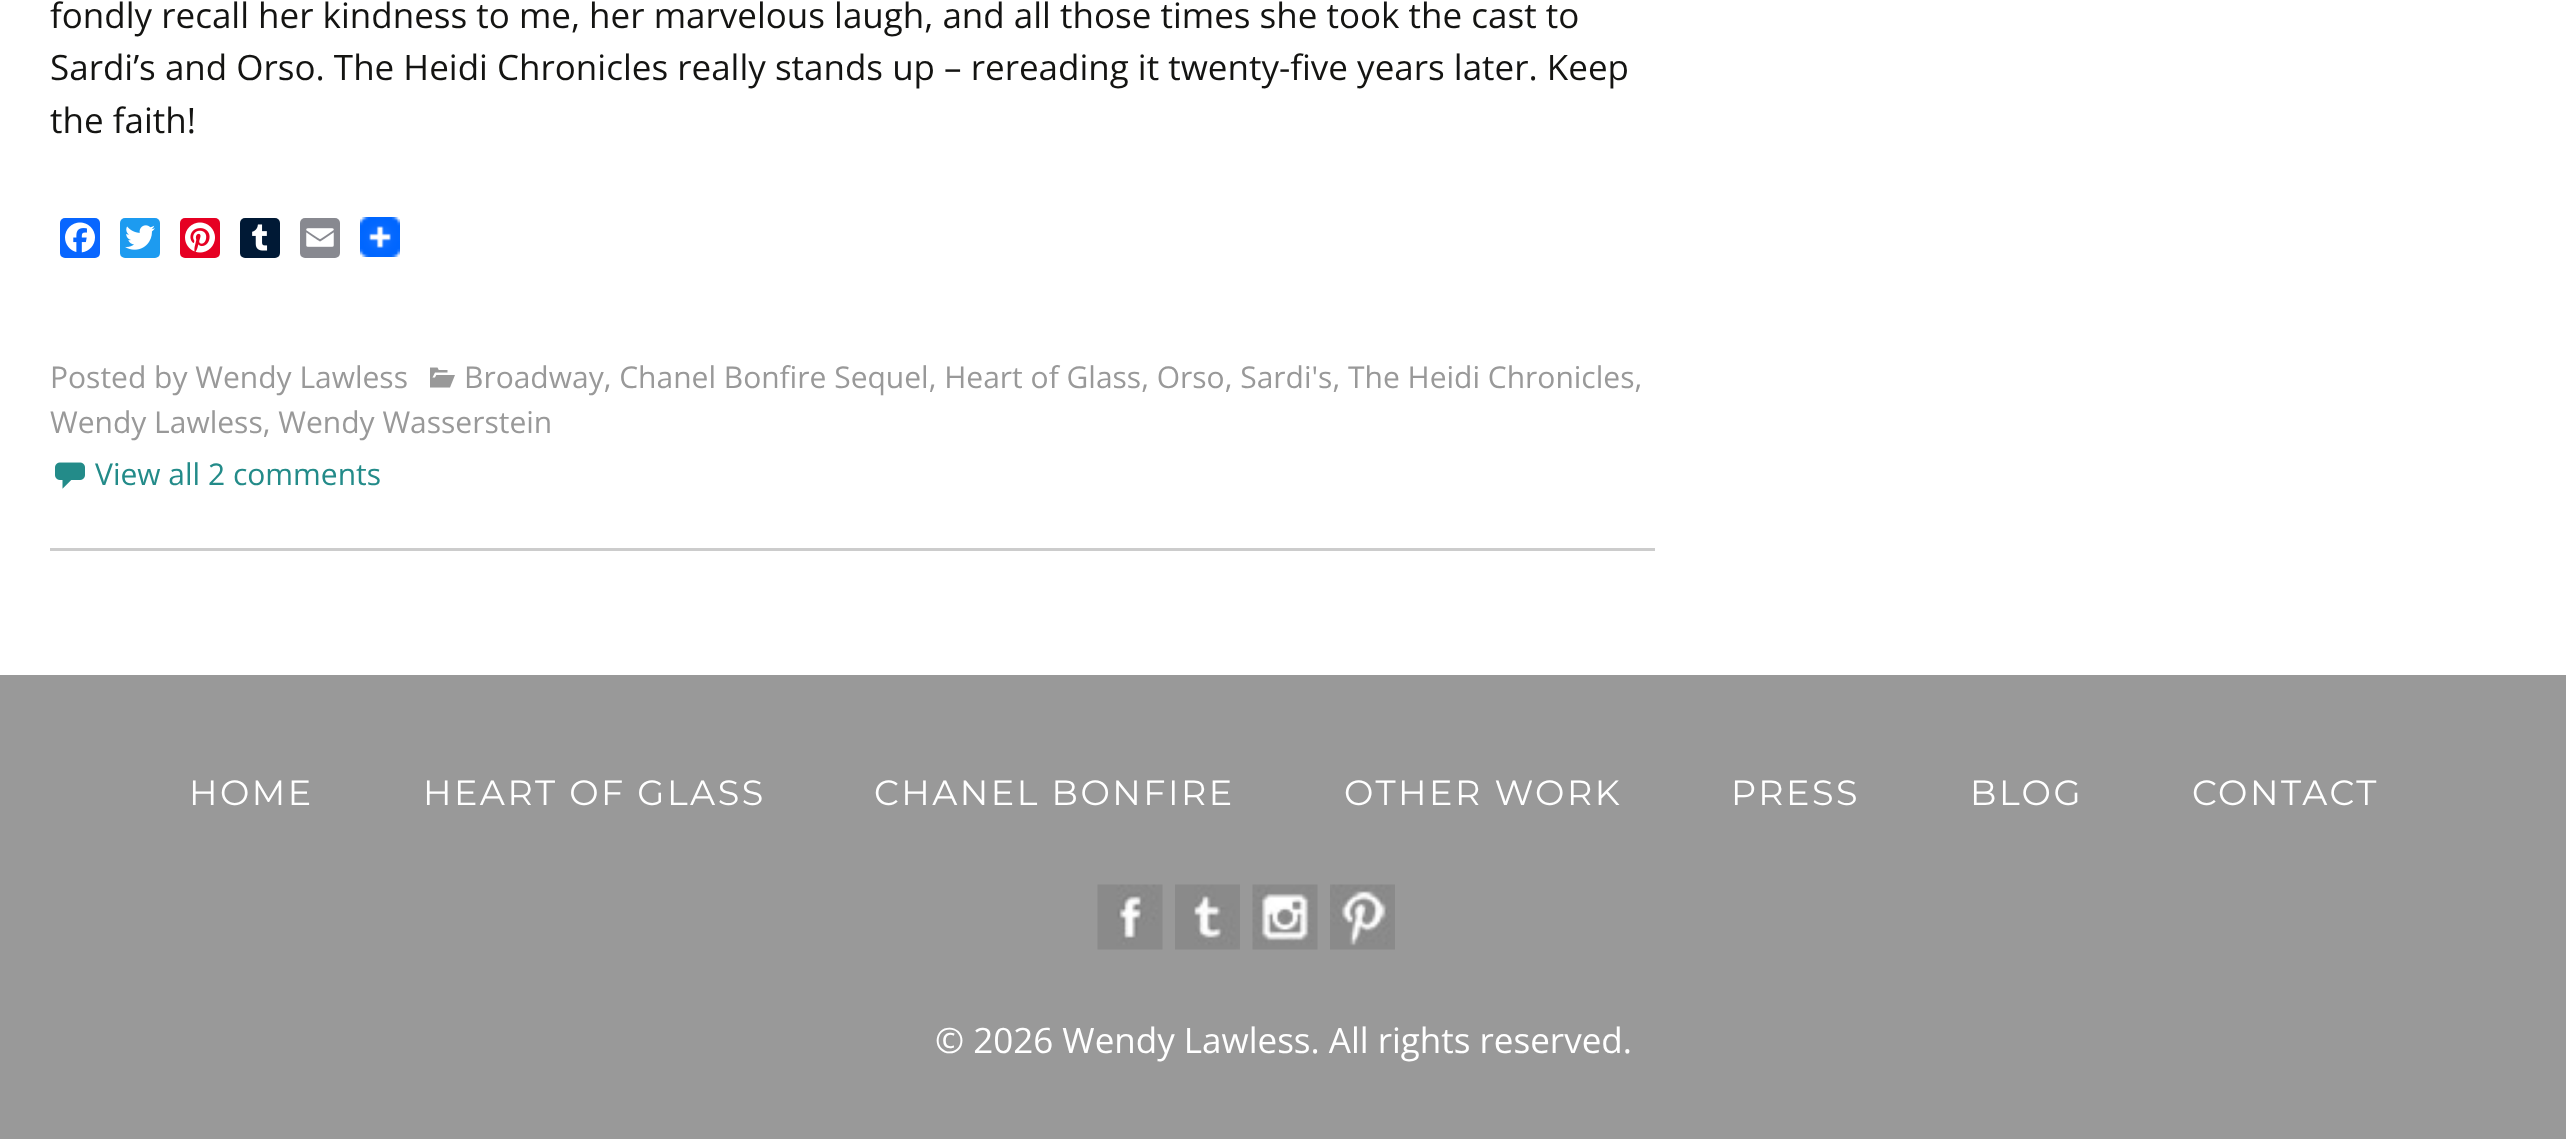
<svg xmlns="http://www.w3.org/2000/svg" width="2566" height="1139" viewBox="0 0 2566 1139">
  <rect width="100%" height="100%" fill="#ffffff"/>
  <text x="50" y="28" font-family="Open Sans" font-size="35" fill="#141412">fondly recall her kindness to me, her marvelous laugh, and all those times she took the cast to</text>
  <text x="50" y="80" font-family="Open Sans" font-size="35" fill="#141412">Sardi’s and Orso. The Heidi Chronicles really stands up – rereading it twenty-five years later. Keep</text>
  <text x="50" y="133" font-family="Open Sans" font-size="35" fill="#141412">the faith!</text>
  <rect x="60" y="218" width="40" height="40" rx="5" fill="#0866ff"/>
  <image x="65" y="222" width="30" height="31" href="img1.png"/>
  <rect x="120" y="218" width="40" height="40" rx="5" fill="#1d9bf0"/>
  <image x="125" y="225" width="30" height="25" href="img2.png"/>
  <rect x="180" y="218" width="40" height="40" rx="5" fill="#e60023"/>
  <image x="185" y="222" width="30" height="31" href="img3.png"/>
  <rect x="240" y="218" width="40" height="40" rx="5" fill="#001935"/>
  <image x="252" y="224" width="16" height="27" href="img4.png"/>
  <rect x="300" y="218" width="40" height="40" rx="5" fill="#888990"/>
  <image x="306" y="228" width="28" height="19" href="img5.png"/>
  <image x="360" y="217" width="40" height="40" href="img6.png"/>
  <image x="430" y="367" width="25" height="21" href="img7.png"/>
  <text x="464" y="388" font-family="Open Sans" font-size="30" fill="#999999">Broadway, Chanel Bonfire Sequel, Heart of Glass, Orso, Sardi's, The Heidi Chronicles,</text>
  <text x="50" y="433" font-family="Open Sans" font-size="30" fill="#999999">Wendy Lawless, Wendy Wasserstein</text>
  <text x="50" y="388" font-family="Open Sans" font-size="30" fill="#999999">Posted by Wendy Lawless</text>
  <rect x="50" y="548" width="1605" height="3" fill="#cccccc"/>
  <image x="55" y="462" width="30" height="27" href="img8.png"/>
  <text x="95" y="485" font-family="Open Sans" font-size="30" fill="#238b89">View all 2 comments</text>
  <rect x="0" y="675" width="2566" height="464" fill="#999999"/>
  <text x="189" y="805" font-family="Montserrat" font-size="35" letter-spacing="2.5" fill="#ffffff">HOME</text>
  <text x="423" y="805" font-family="Montserrat" font-size="35" letter-spacing="2.5" fill="#ffffff">HEART OF GLASS</text>
  <text x="874" y="805" font-family="Montserrat" font-size="35" letter-spacing="2.5" fill="#ffffff">CHANEL BONFIRE</text>
  <text x="1344" y="805" font-family="Montserrat" font-size="35" letter-spacing="2.5" fill="#ffffff">OTHER WORK</text>
  <text x="1731" y="805" font-family="Montserrat" font-size="35" letter-spacing="2.5" fill="#ffffff">PRESS</text>
  <text x="1970" y="805" font-family="Montserrat" font-size="35" letter-spacing="2.5" fill="#ffffff">BLOG</text>
  <text x="2192" y="805" font-family="Montserrat" font-size="35" letter-spacing="2.5" fill="#ffffff">CONTACT</text>
  <image x="1097" y="884" width="66" height="66" href="img9.png"/>
  <image x="1175" y="884" width="65" height="66" href="img10.png"/>
  <image x="1252" y="884" width="66" height="66" href="img11.png"/>
  <image x="1330" y="884" width="65" height="66" href="img12.png"/>
  <text x="935" y="1053" font-family="Open Sans" font-size="35" fill="#ffffff">© 2026 Wendy Lawless. All rights reserved.</text>
</svg>
